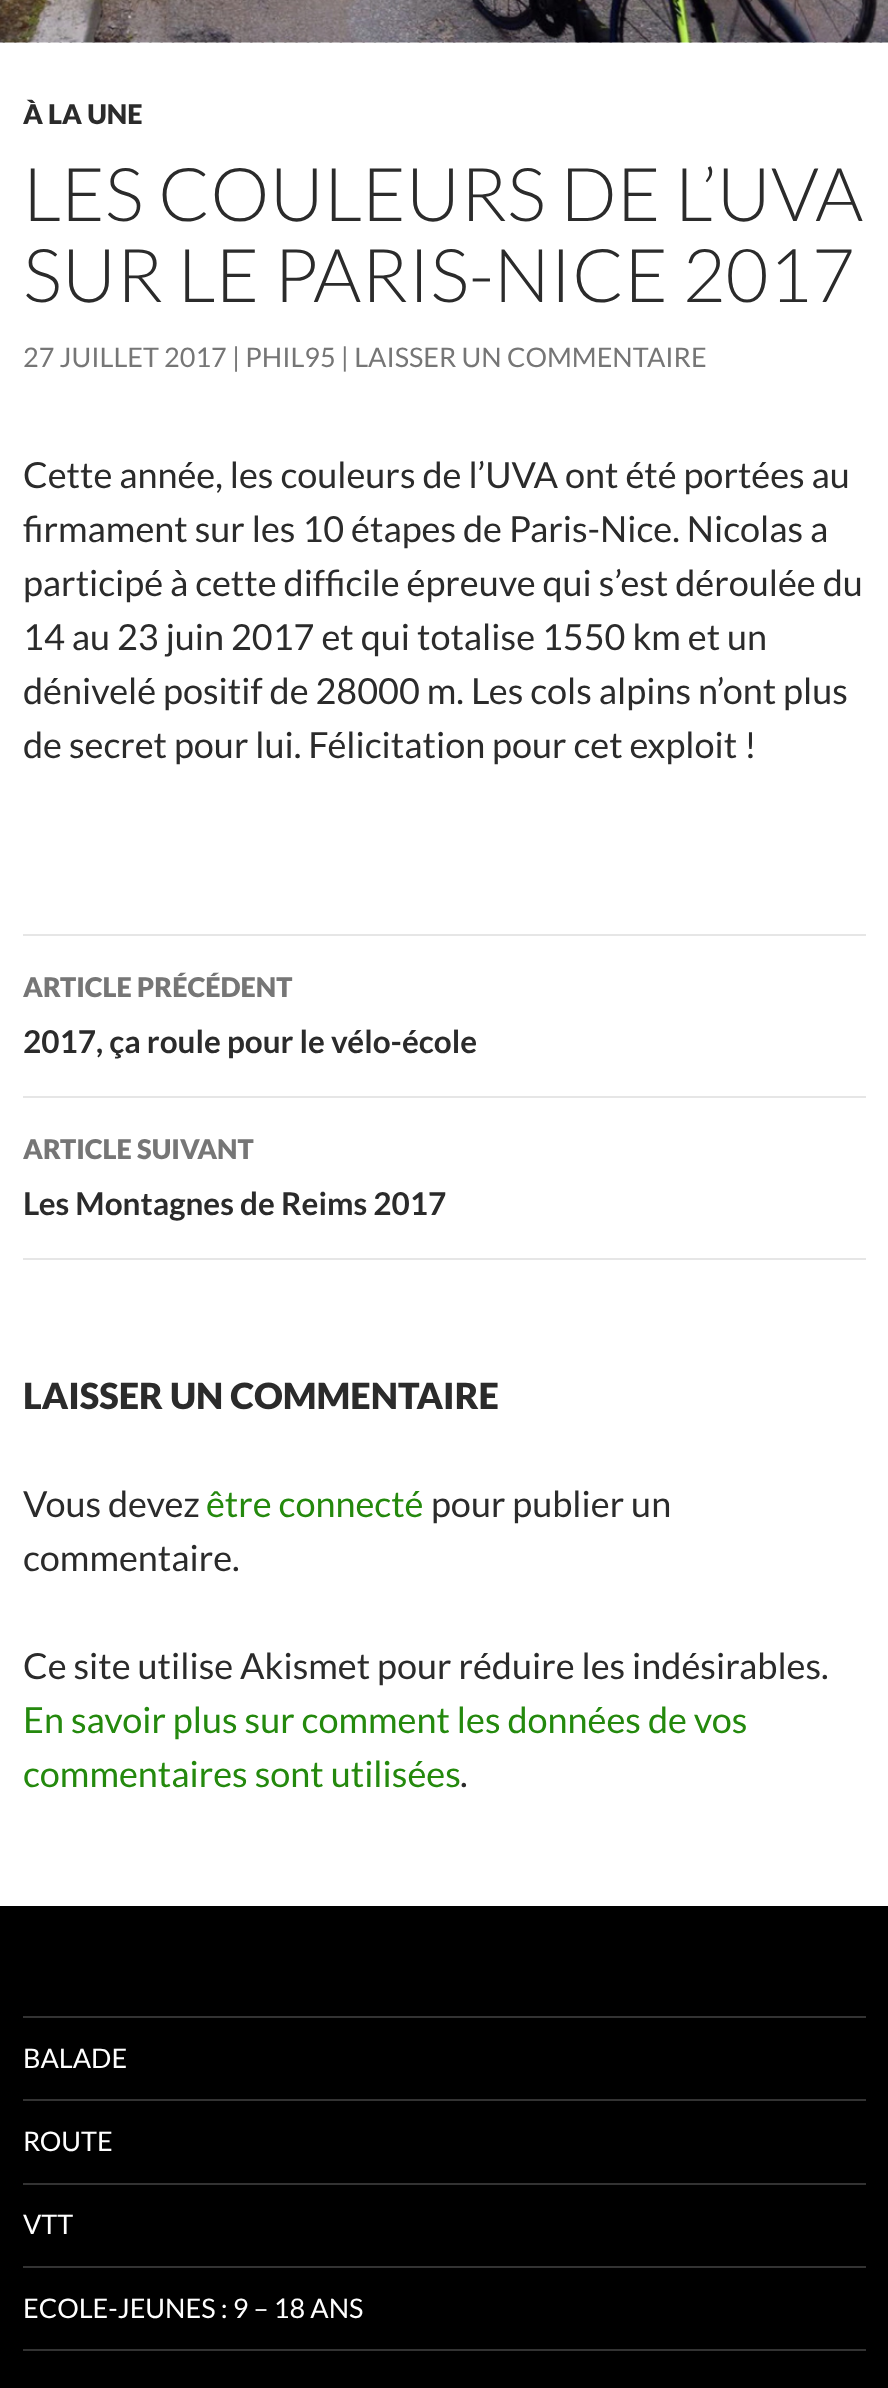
<svg xmlns="http://www.w3.org/2000/svg" width="888" height="2388" viewBox="0 0 888 2388">
  <rect width="100%" height="100%" fill="#ffffff"/>
  <rect x="2" y="42" width="881" height="1" fill="#b2b2b2"/>
  <image x="0" y="42" width="888" height="1" href="img1.png"/>
  <image x="0" y="0" width="888" height="43" href="img2.png"/>
  <text x="23" y="124" font-family="Lato" font-size="27" font-weight="900" fill="#2b2b2b">À LA UNE</text>
  <text x="23" y="221" font-family="Lato" font-size="74.25" font-weight="300" fill="#2b2b2b">LES COULEURS DE L’UVA</text>
  <text x="23" y="302" font-family="Lato" font-size="74.25" font-weight="300" fill="#2b2b2b">SUR LE PARIS-NICE 2017</text>
  <text x="23" y="367" font-family="Lato" font-size="27" fill="#767676">27 JUILLET 2017 | PHIL95 | LAISSER UN COMMENTAIRE</text>
  <text x="23" y="488" font-family="Lato" font-size="36" fill="#2b2b2b">Cette année, les couleurs de l’UVA ont été portées au</text>
  <text x="23" y="542" font-family="Lato" font-size="36" fill="#2b2b2b">firmament sur les 10 étapes de Paris-Nice. Nicolas a</text>
  <text x="23" y="596" font-family="Lato" font-size="36" fill="#2b2b2b">participé à cette difficile épreuve qui s’est déroulée du</text>
  <text x="23" y="650" font-family="Lato" font-size="36" fill="#2b2b2b">14 au 23 juin 2017 et qui totalise 1550 km et un</text>
  <text x="23" y="704" font-family="Lato" font-size="36" fill="#2b2b2b">dénivelé positif de 28000 m. Les cols alpins n’ont plus</text>
  <text x="23" y="758" font-family="Lato" font-size="36" fill="#2b2b2b">de secret pour lui. Félicitation pour cet exploit !</text>
  <rect x="23" y="934" width="843" height="2" fill="#e6e6e6"/>
  <rect x="23" y="1096" width="843" height="2" fill="#e6e6e6"/>
  <text x="23" y="997" font-family="Lato" font-size="27" font-weight="900" fill="#767676">ARTICLE PRÉCÉDENT</text>
  <text x="23" y="1053" font-family="Lato" font-size="31.5" font-weight="bold" fill="#2b2b2b">2017, ça roule pour le vélo-école</text>
  <rect x="23" y="1258" width="843" height="2" fill="#e6e6e6"/>
  <text x="23" y="1159" font-family="Lato" font-size="27" font-weight="900" fill="#767676">ARTICLE SUIVANT</text>
  <text x="23" y="1215" font-family="Lato" font-size="31.5" font-weight="bold" fill="#2b2b2b">Les Montagnes de Reims 2017</text>
  <text x="23" y="1409" font-family="Lato" font-size="36" font-weight="900" fill="#2b2b2b">LAISSER UN COMMENTAIRE</text>
  <text x="23" y="1517" font-family="Lato" font-size="36" fill="#2b2b2b">Vous devez</text>
  <text x="206" y="1517" font-family="Lato" font-size="36" fill="#24890d">être connecté</text>
  <text x="431" y="1517" font-family="Lato" font-size="36" fill="#2b2b2b">pour publier un</text>
  <text x="23" y="1571" font-family="Lato" font-size="36" fill="#2b2b2b">commentaire.</text>
  <text x="23" y="1679" font-family="Lato" font-size="36" fill="#2b2b2b">Ce site utilise Akismet pour réduire les indésirables.</text>
  <text x="23" y="1733" font-family="Lato" font-size="36" fill="#24890d">En savoir plus sur comment les données de vos</text>
  <text x="23" y="1787" font-family="Lato" font-size="36" fill="#24890d">commentaires sont utilisées</text>
  <text x="460" y="1787" font-family="Lato" font-size="36" fill="#2b2b2b">.</text>
  <rect x="0" y="1906" width="888" height="482" fill="#000000"/>
  <rect x="23" y="2349" width="843" height="2" fill="#333333"/>
  <rect x="23" y="2016" width="843" height="2" fill="#333333"/>
  <text x="23" y="2068" font-family="Lato" font-size="27" fill="#ffffff">BALADE</text>
  <rect x="23" y="2099" width="843" height="2" fill="#333333"/>
  <text x="23" y="2151" font-family="Lato" font-size="27" fill="#ffffff">ROUTE</text>
  <rect x="23" y="2183" width="843" height="2" fill="#333333"/>
  <text x="23" y="2234" font-family="Lato" font-size="27" fill="#ffffff">VTT</text>
  <rect x="23" y="2266" width="843" height="2" fill="#333333"/>
  <text x="23" y="2318" font-family="Lato" font-size="27" fill="#ffffff">ECOLE-JEUNES : 9 – 18 ANS</text>
</svg>
